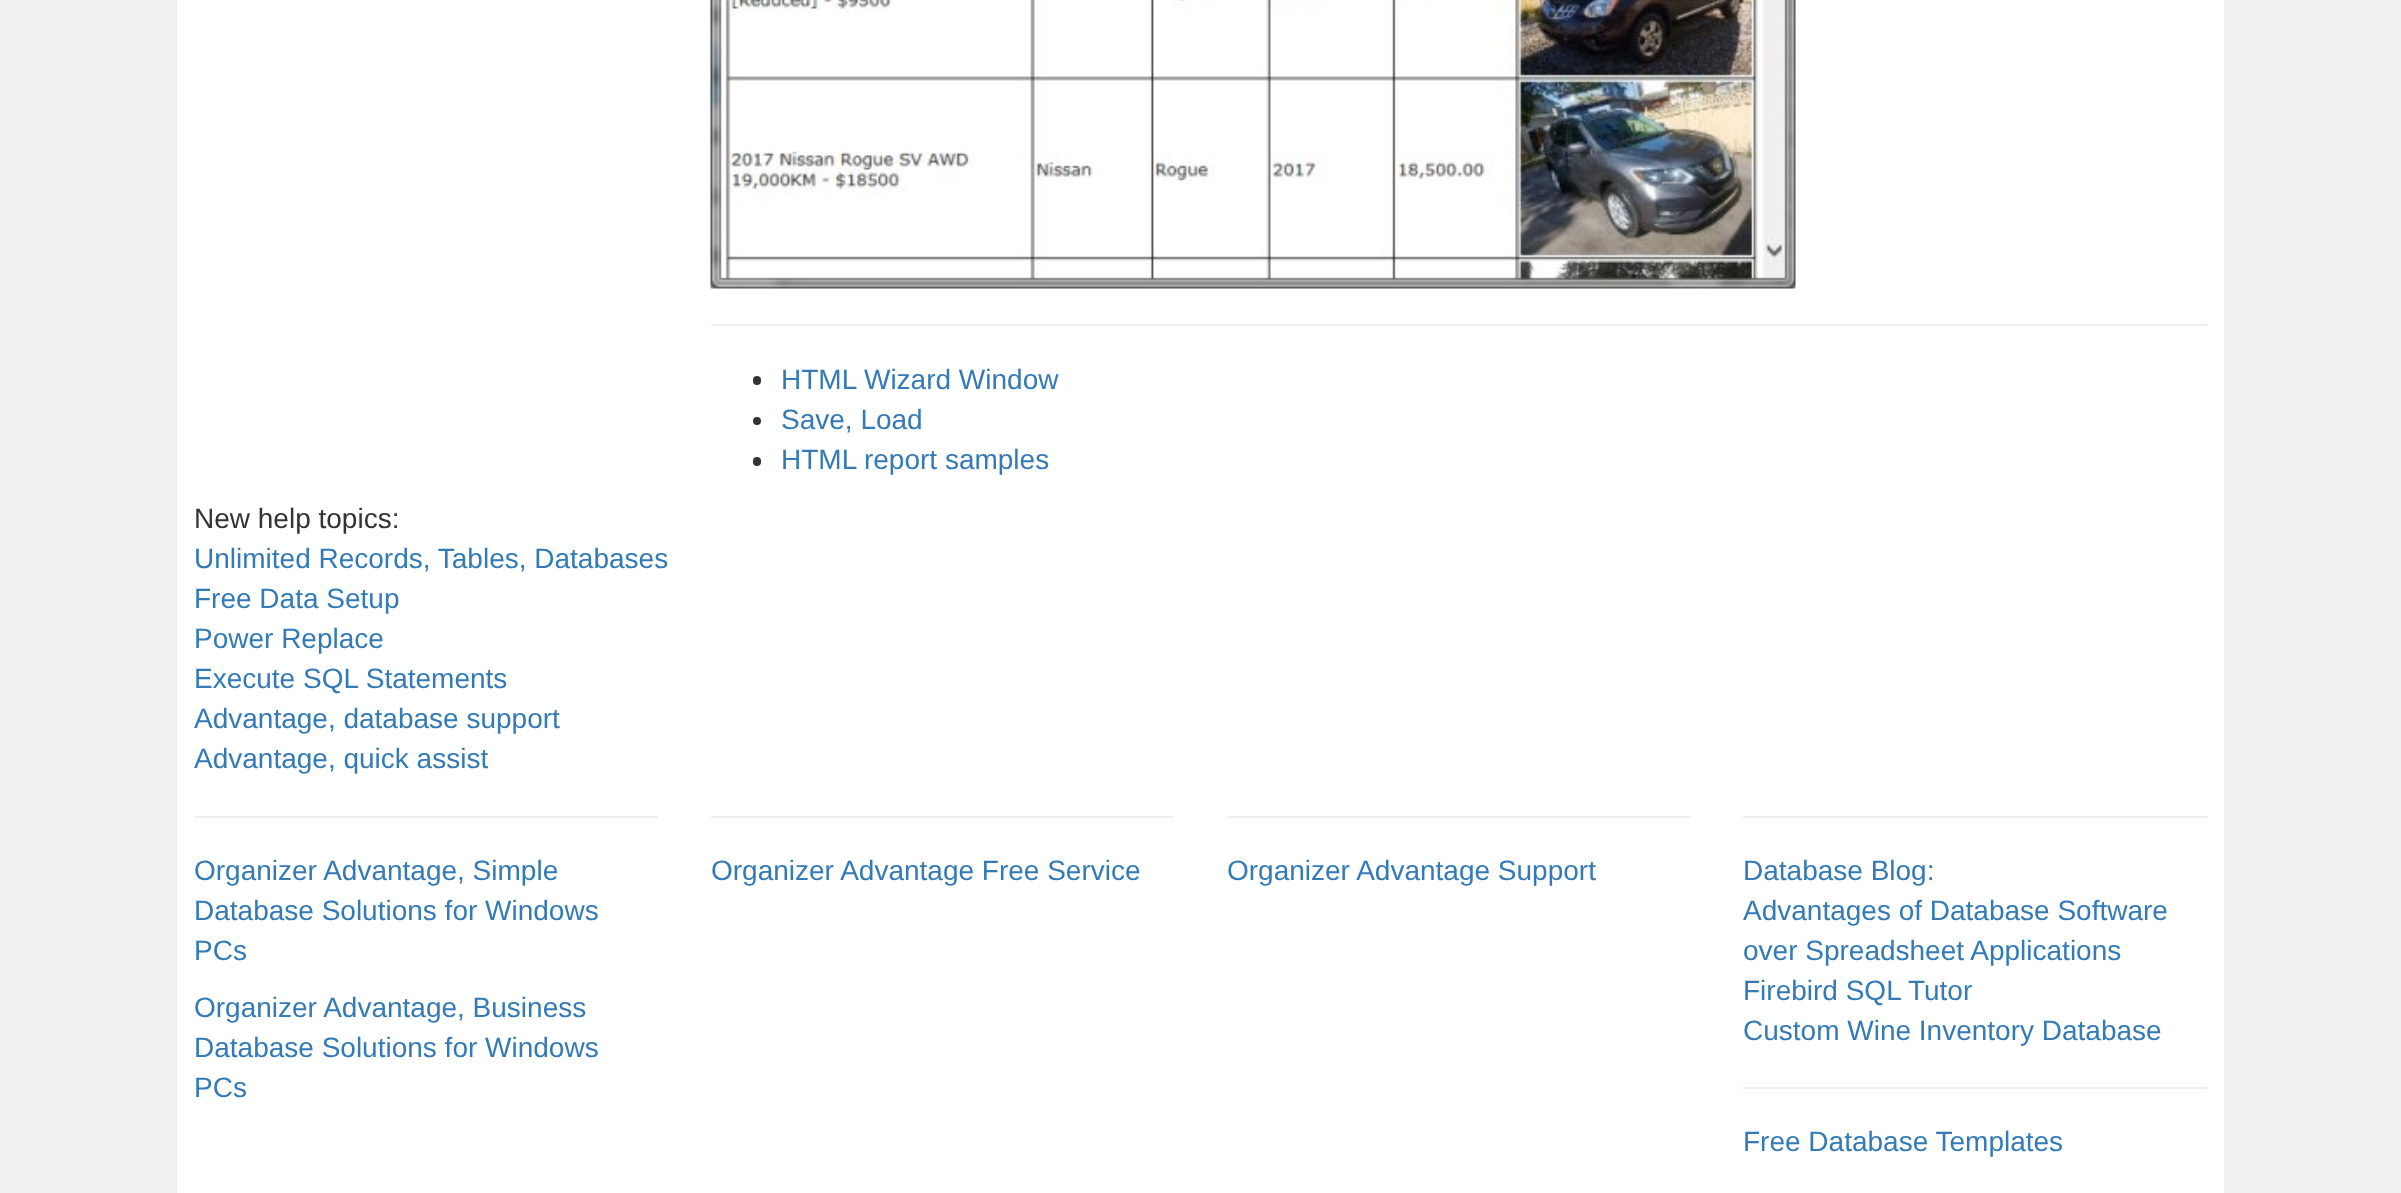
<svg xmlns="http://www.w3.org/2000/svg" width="2401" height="1193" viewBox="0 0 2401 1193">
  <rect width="100%" height="100%" fill="#f0f0f0"/>
  <rect x="177" y="0" width="2047" height="1193" fill="#ffffff"/>
  <image x="710" y="0" width="1086" height="289" href="img1.png"/>
  <rect x="711" y="324" width="1496" height="2" fill="#eeeeee"/>
  <rect x="753" y="376" width="8" height="9" rx="4" fill="#333333"/>
  <text x="781" y="389" font-family="Liberation Sans" font-size="28" fill="#337ab7">HTML Wizard Window</text>
  <circle cx="757" cy="421" r="4" fill="#333333"/>
  <text x="781" y="429" font-family="Liberation Sans" font-size="28" fill="#337ab7">Save, Load</text>
  <rect x="753" y="457" width="8" height="9" rx="4" fill="#333333"/>
  <text x="781" y="469" font-family="Liberation Sans" font-size="28" fill="#337ab7">HTML report samples</text>
  <text x="194" y="528" font-family="Liberation Sans" font-size="28" fill="#333333">New help topics:</text>
  <text x="194" y="568" font-family="Liberation Sans" font-size="28" fill="#337ab7">Unlimited Records, Tables, Databases</text>
  <text x="194" y="608" font-family="Liberation Sans" font-size="28" fill="#337ab7">Free Data Setup</text>
  <text x="194" y="648" font-family="Liberation Sans" font-size="28" fill="#337ab7">Power Replace</text>
  <text x="194" y="688" font-family="Liberation Sans" font-size="28" fill="#337ab7">Execute SQL Statements</text>
  <text x="194" y="728" font-family="Liberation Sans" font-size="28" fill="#337ab7">Advantage, database support</text>
  <text x="194" y="768" font-family="Liberation Sans" font-size="28" fill="#337ab7">Advantage, quick assist</text>
  <rect x="194" y="816" width="464" height="2" fill="#eeeeee"/>
  <text x="194" y="880" font-family="Liberation Sans" font-size="28" fill="#337ab7">Organizer Advantage, Simple</text>
  <text x="194" y="920" font-family="Liberation Sans" font-size="28" fill="#337ab7">Database Solutions for Windows</text>
  <text x="194" y="960" font-family="Liberation Sans" font-size="28" fill="#337ab7">PCs</text>
  <text x="194" y="1017" font-family="Liberation Sans" font-size="28" fill="#337ab7">Organizer Advantage, Business</text>
  <text x="194" y="1057" font-family="Liberation Sans" font-size="28" fill="#337ab7">Database Solutions for Windows</text>
  <text x="194" y="1097" font-family="Liberation Sans" font-size="28" fill="#337ab7">PCs</text>
  <rect x="711" y="816" width="463" height="2" fill="#eeeeee"/>
  <text x="711" y="880" font-family="Liberation Sans" font-size="28" fill="#337ab7">Organizer Advantage Free Service</text>
  <rect x="1227" y="816" width="464" height="2" fill="#eeeeee"/>
  <text x="1227" y="880" font-family="Liberation Sans" font-size="28" fill="#337ab7">Organizer Advantage Support</text>
  <rect x="1743" y="816" width="464" height="2" fill="#eeeeee"/>
  <text x="1743" y="880" font-family="Liberation Sans" font-size="28" fill="#337ab7">Database Blog:</text>
  <text x="1743" y="920" font-family="Liberation Sans" font-size="28" fill="#337ab7">Advantages of Database Software</text>
  <text x="1743" y="960" font-family="Liberation Sans" font-size="28" fill="#337ab7">over Spreadsheet Applications</text>
  <text x="1743" y="1000" font-family="Liberation Sans" font-size="28" fill="#337ab7">Firebird SQL Tutor</text>
  <text x="1743" y="1040" font-family="Liberation Sans" font-size="28" fill="#337ab7">Custom Wine Inventory Database</text>
  <rect x="1743" y="1087" width="464" height="2" fill="#eeeeee"/>
  <text x="1743" y="1151" font-family="Liberation Sans" font-size="28" fill="#337ab7">Free Database Templates</text>
</svg>
